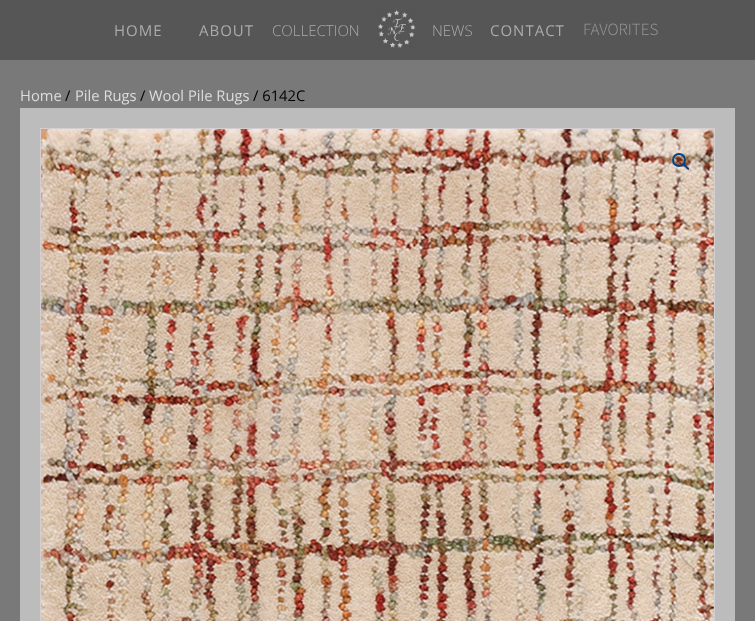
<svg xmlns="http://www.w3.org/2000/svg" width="755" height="621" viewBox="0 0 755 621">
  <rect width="100%" height="100%" fill="#565656"/>
  <text x="114" y="36" font-family="Open Sans" font-size="15" letter-spacing="1" fill="#ababab">HOME</text>
  <text x="199" y="36" font-family="Open Sans" font-size="15" letter-spacing="1" fill="#ababab">ABOUT</text>
  <text x="272" y="36" font-family="Open Sans" font-size="15" font-weight="300" fill="#ababab">COLLECTION</text>
  <image x="378" y="10" width="37" height="38" href="img1.png"/>
  <text x="432" y="36" font-family="Open Sans" font-size="15" font-weight="300" fill="#ababab">NEWS</text>
  <text x="490" y="36" font-family="Open Sans" font-size="15" letter-spacing="1" fill="#ababab">CONTACT</text>
  <text x="583" y="35" font-family="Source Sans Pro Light" font-size="17" font-weight="300" fill="#999999">FAVORITES</text>
  <rect x="0" y="60" width="755" height="561" fill="#7a7979"/>
  <text x="20" y="101" font-family="Open Sans" font-size="14.75" fill="#dddddd">Home</text>
  <text x="65" y="101" font-family="Open Sans" font-size="14.75" fill="#000000">/</text>
  <text x="75" y="101" font-family="Open Sans" font-size="14.75" fill="#dddddd">Pile Rugs</text>
  <text x="140" y="101" font-family="Open Sans" font-size="14.75" fill="#000000">/</text>
  <text x="149" y="101" font-family="Open Sans" font-size="14.75" fill="#dddddd">Wool Pile Rugs</text>
  <text x="253" y="101" font-family="Open Sans" font-size="14.75" fill="#000000">/ 6142C</text>
  <rect x="20" y="108" width="715" height="513" fill="#bcbcbc"/>
  <rect x="40.5" y="128.5" width="674" height="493" fill="none" stroke="#d3ced2"/>
  <image x="41" y="129" width="673" height="492" href="img2.png"/>
  <circle cx="679" cy="160" r="6" fill="none" stroke="#004482" stroke-width="2"/>
  <path d="M683 163.5C684.5 162.5 686 165 686.5 166C687.5 166.5 690 168 689 169.5C687.5 170.5 686 168 685.5 167.5C684.5 166.5 682 165 683 163.5Z" fill="#004482"/>
</svg>
